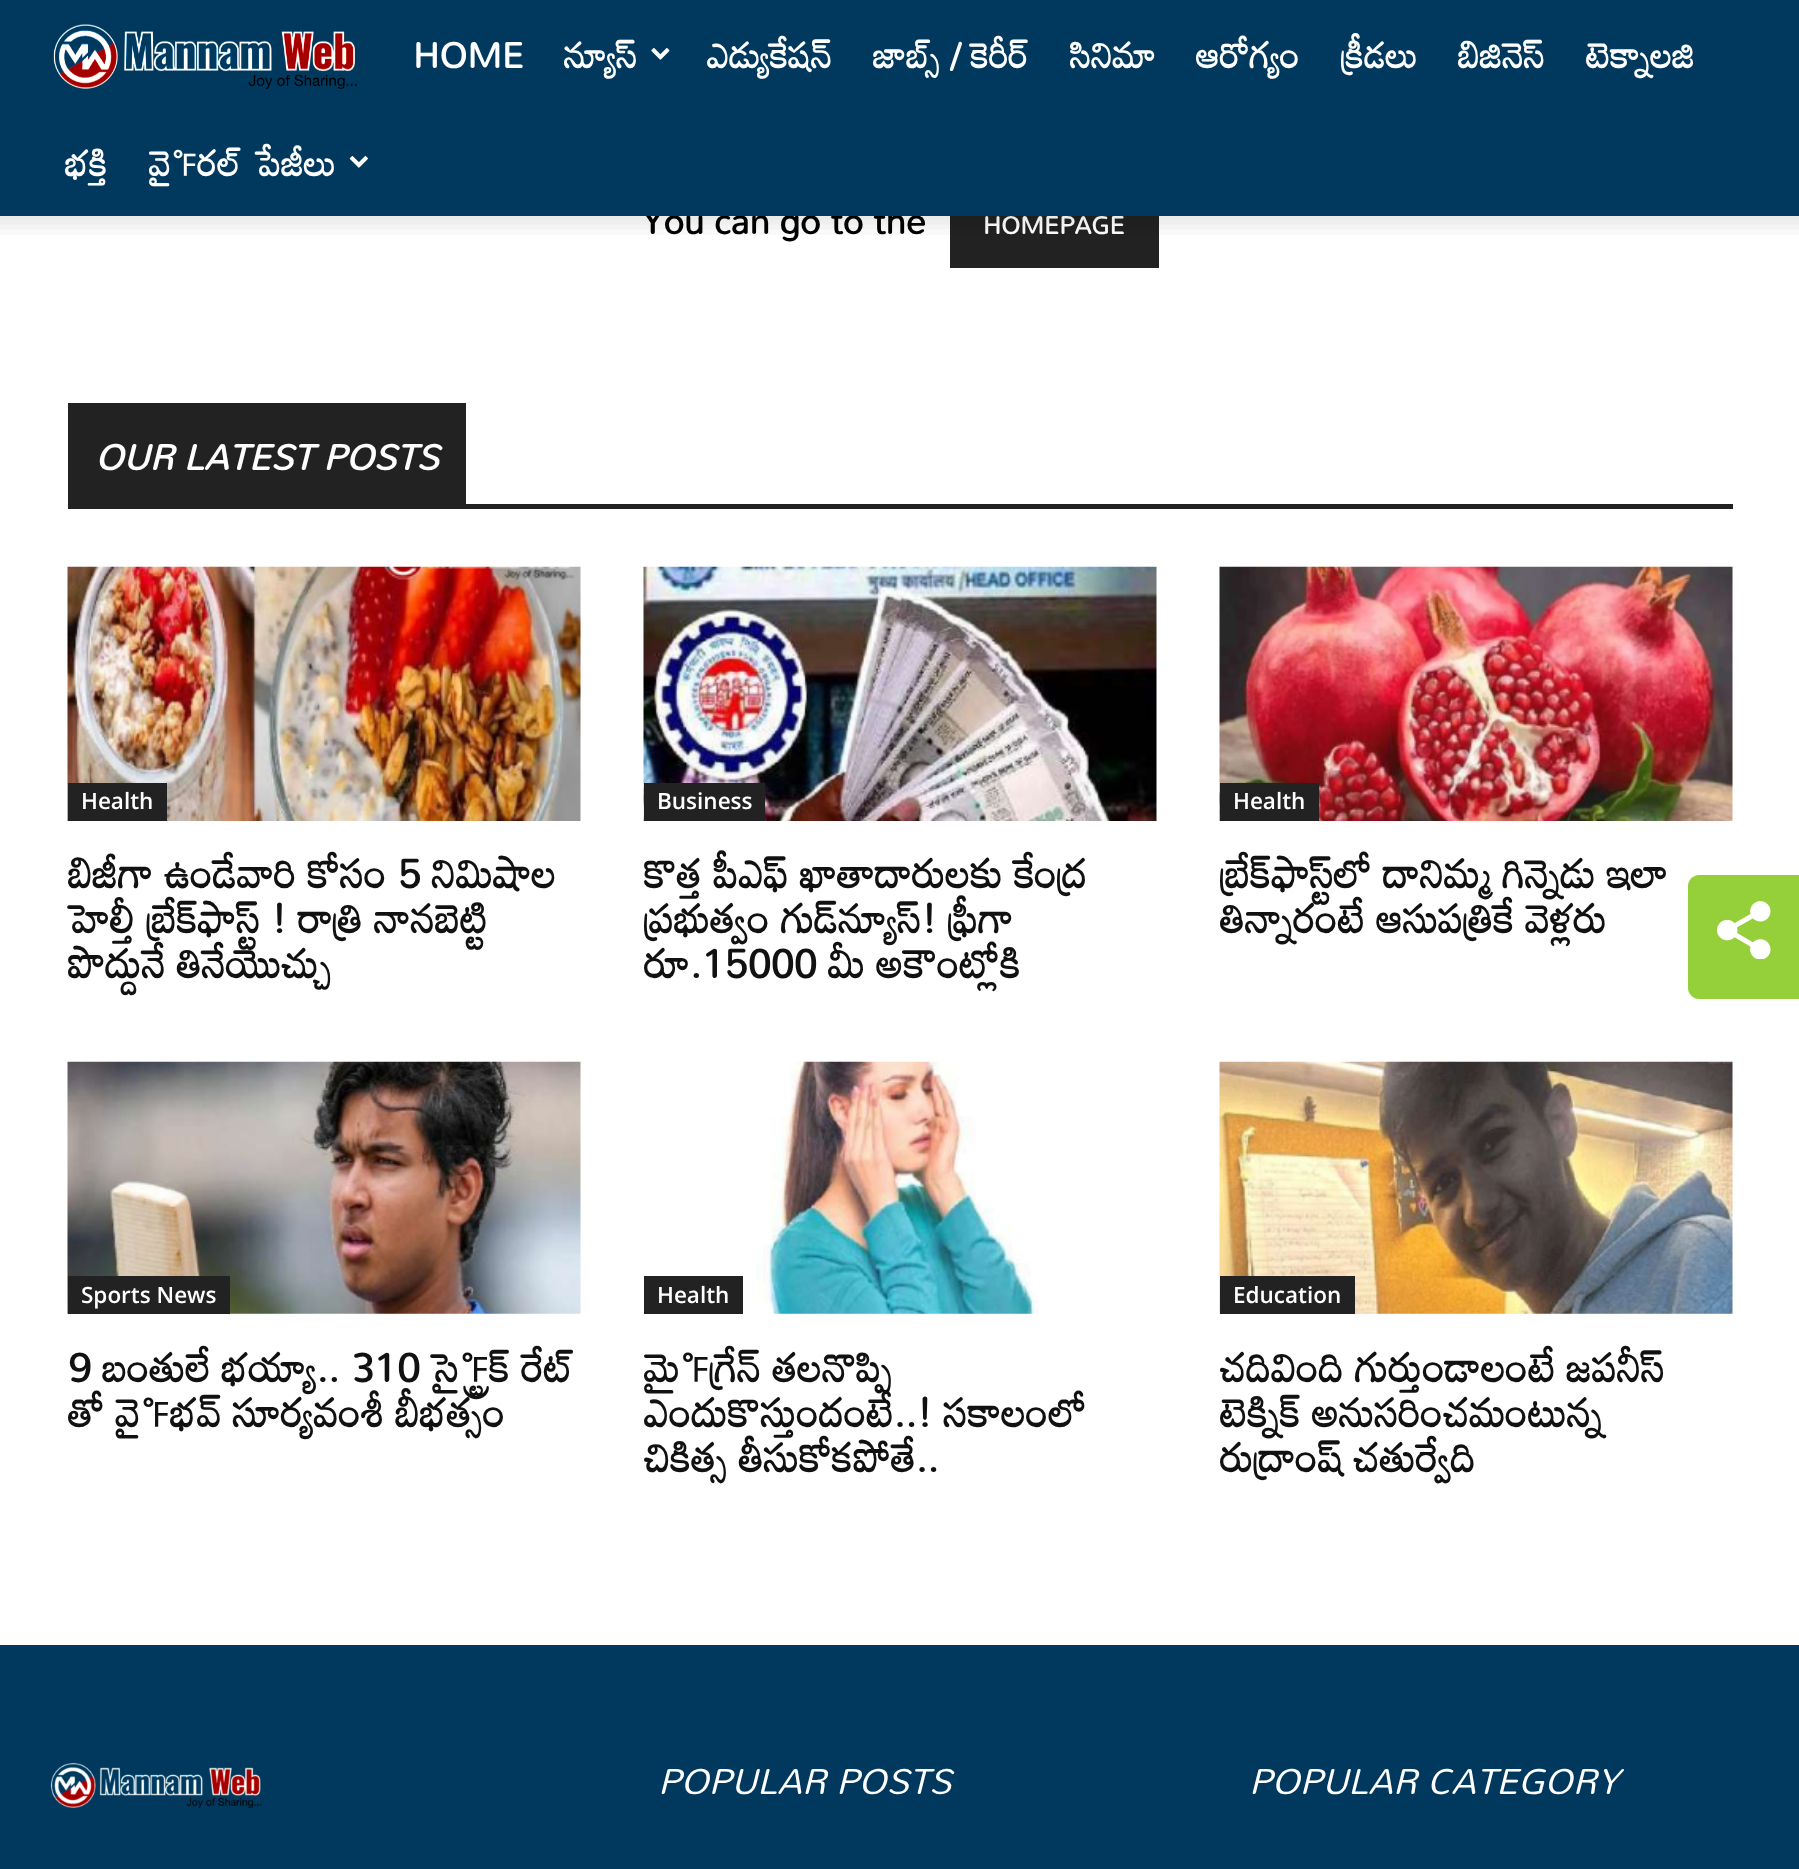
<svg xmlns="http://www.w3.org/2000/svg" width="1799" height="1869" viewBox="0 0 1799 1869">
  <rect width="100%" height="100%" fill="#ffffff"/>
  <text x="641" y="234" font-family="Mandali" font-size="36" font-weight="bold" fill="#000000">You can go to the</text>
  <rect x="0" y="0" width="1799" height="216" fill="#01395e"/>
  <image x="53" y="24" width="304" height="65" href="img1.png"/>
  <text x="413" y="68" font-family="Mandali" font-size="36" font-weight="bold" fill="#ffffff">HOME</text>
  <text x="564" y="68" font-family="Mandali" font-size="36" font-weight="bold" fill="#ffffff">న్యూస్</text>
  <image x="651" y="48" width="19" height="12" href="img2.png"/>
  <text x="707" y="68" font-family="Mandali" font-size="36" font-weight="bold" fill="#ffffff">ఎడ్యుకేషన్</text>
  <text x="873" y="68" font-family="Mandali" font-size="36" font-weight="bold" fill="#ffffff">జాబ్స్ / కెరీర్</text>
  <text x="1070" y="68" font-family="Mandali" font-size="36" font-weight="bold" fill="#ffffff">సినిమా</text>
  <text x="1196" y="68" font-family="Mandali" font-size="36" font-weight="bold" fill="#ffffff">ఆరోగ్యం</text>
  <text x="1341" y="68" font-family="Mandali" font-size="36" font-weight="bold" fill="#ffffff">క్రీడలు</text>
  <text x="1458" y="68" font-family="Mandali" font-size="36" font-weight="bold" fill="#ffffff">బిజినెస్</text>
  <text x="1586" y="68" font-family="Mandali" font-size="36" font-weight="bold" fill="#ffffff">టెక్నాలజి</text>
  <text x="65" y="176" font-family="Mandali" font-size="36" font-weight="bold" fill="#ffffff">భక్తి</text>
  <text x="149" y="176" font-family="Mandali" font-size="36" font-weight="bold" fill="#ffffff">వైరల్</text>
  <text x="256" y="176" font-family="Mandali" font-size="36" font-weight="bold" fill="#ffffff">పేజీలు</text>
  <image x="349" y="156" width="19" height="12" href="img3.png"/>
  <rect x="950" y="216" width="209" height="52" fill="#222222"/>
  <text x="983" y="234" font-family="Mandali" font-size="24.75" font-weight="bold" fill="#ffffff">HOMEPAGE</text>
  <image x="0" y="216" width="1799" height="19" href="img4.png"/>
  <rect x="68" y="504" width="1665" height="5" fill="#222222"/>
  <rect x="68" y="403" width="398" height="101" fill="#222222"/>
  <text x="95" y="470" font-family="Mandali" font-size="36" font-weight="bold" font-style="italic" fill="#ffffff">OUR LATEST POSTS</text>
  <image x="67" y="566" width="514" height="255" href="img5.png"/>
  <rect x="68" y="783" width="99" height="38" fill="#222222"/>
  <text x="81" y="809" font-family="Open Sans" font-size="22.5" font-weight="600" fill="#ffffff">Health</text>
  <text x="68" y="888" font-family="Mandali" font-size="40.5" font-weight="bold" fill="#111111">బిజీగా ఉండేవారి కోసం 5 నిమిషాల</text>
  <text x="68" y="933" font-family="Mandali" font-size="40.5" font-weight="bold" fill="#111111">హెల్తీ బ్రేక్‌ఫాస్ట్ ! రాత్రి నానబెట్టి</text>
  <text x="68" y="978" font-family="Mandali" font-size="40.5" font-weight="bold" fill="#111111">పొద్దునే తినేయొచ్చు</text>
  <image x="643" y="566" width="514" height="255" href="img6.png"/>
  <rect x="644" y="783" width="121" height="38" fill="#222222"/>
  <text x="657" y="809" font-family="Open Sans" font-size="22.5" font-weight="600" fill="#ffffff">Business</text>
  <text x="644" y="888" font-family="Mandali" font-size="40.5" font-weight="bold" fill="#111111">కొత్త పీఎఫ్‌ ఖాతాదారులకు కేంద్ర</text>
  <text x="644" y="933" font-family="Mandali" font-size="40.5" font-weight="bold" fill="#111111">ప్రభుత్వం గుడ్‌న్యూస్‌! ఫ్రీగా</text>
  <text x="644" y="978" font-family="Mandali" font-size="40.5" font-weight="bold" fill="#111111">రూ.15000 మీ అకౌంట్లోకి</text>
  <image x="1219" y="566" width="514" height="255" href="img7.png"/>
  <rect x="1220" y="783" width="99" height="38" fill="#222222"/>
  <text x="1233" y="809" font-family="Open Sans" font-size="22.5" font-weight="600" fill="#ffffff">Health</text>
  <text x="1220" y="888" font-family="Mandali" font-size="40.5" font-weight="bold" fill="#111111">బ్రేక్‌ఫాస్ట్‌లో దానిమ్మ గిన్నెడు ఇలా</text>
  <text x="1220" y="933" font-family="Mandali" font-size="40.5" font-weight="bold" fill="#111111">తిన్నారంటే ఆసుపత్రికే వెళ్లరు</text>
  <image x="67" y="1061" width="514" height="253" href="img8.png"/>
  <rect x="68" y="1276" width="162" height="38" fill="#222222"/>
  <text x="81" y="1303" font-family="Open Sans" font-size="22.5" font-weight="600" fill="#ffffff">Sports News</text>
  <text x="68" y="1382" font-family="Mandali" font-size="40.5" font-weight="bold" fill="#111111">9 బంతులే భయ్యా.. 310 స్ట్రైక్ రేట్</text>
  <text x="68" y="1427" font-family="Mandali" font-size="40.5" font-weight="bold" fill="#111111">తో వైభవ్ సూర్యవంశీ బీభత్సం</text>
  <rect x="644" y="1276" width="99" height="38" fill="#222222"/>
  <text x="657" y="1303" font-family="Open Sans" font-size="22.5" font-weight="600" fill="#ffffff">Health</text>
  <image x="756" y="1061" width="283" height="253" href="img9.png"/>
  <text x="644" y="1382" font-family="Mandali" font-size="40.5" font-weight="bold" fill="#111111">మైగ్రేన్‌ తలనొప్పి</text>
  <text x="644" y="1427" font-family="Mandali" font-size="40.5" font-weight="bold" fill="#111111">ఎందుకొస్తుందంటే..! సకాలంలో</text>
  <text x="644" y="1472" font-family="Mandali" font-size="40.5" font-weight="bold" fill="#111111">చికిత్స తీసుకోకపోతే..</text>
  <image x="1219" y="1061" width="514" height="253" href="img10.png"/>
  <rect x="1220" y="1276" width="135" height="38" fill="#222222"/>
  <text x="1233" y="1303" font-family="Open Sans" font-size="22.5" font-weight="600" fill="#ffffff">Education</text>
  <text x="1220" y="1382" font-family="Mandali" font-size="40.5" font-weight="bold" fill="#111111">చదివింది గుర్తుండాలంటే జపనీస్</text>
  <text x="1220" y="1427" font-family="Mandali" font-size="40.5" font-weight="bold" fill="#111111">టెక్నిక్ అనుసరించమంటున్న</text>
  <text x="1220" y="1472" font-family="Mandali" font-size="40.5" font-weight="bold" fill="#111111">రుద్రాంష్ చతుర్వేది</text>
  <rect x="0" y="1645" width="1799" height="224" fill="#01395e"/>
  <image x="50" y="1762" width="212" height="46" href="img11.png"/>
  <text x="658" y="1794" font-family="Mandali" font-size="36" font-style="italic" fill="#ffffff">POPULAR POSTS</text>
  <text x="1249" y="1794" font-family="Mandali" font-size="36" font-style="italic" fill="#ffffff">POPULAR CATEGORY</text>
  <path d="M1699 875H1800V999H1699C1693 999 1688 994 1688 988V886C1688 880 1693 875 1699 875Z" fill="#95d03a"/>
  <image x="1717" y="901" width="54" height="58" href="img12.png"/>
</svg>
